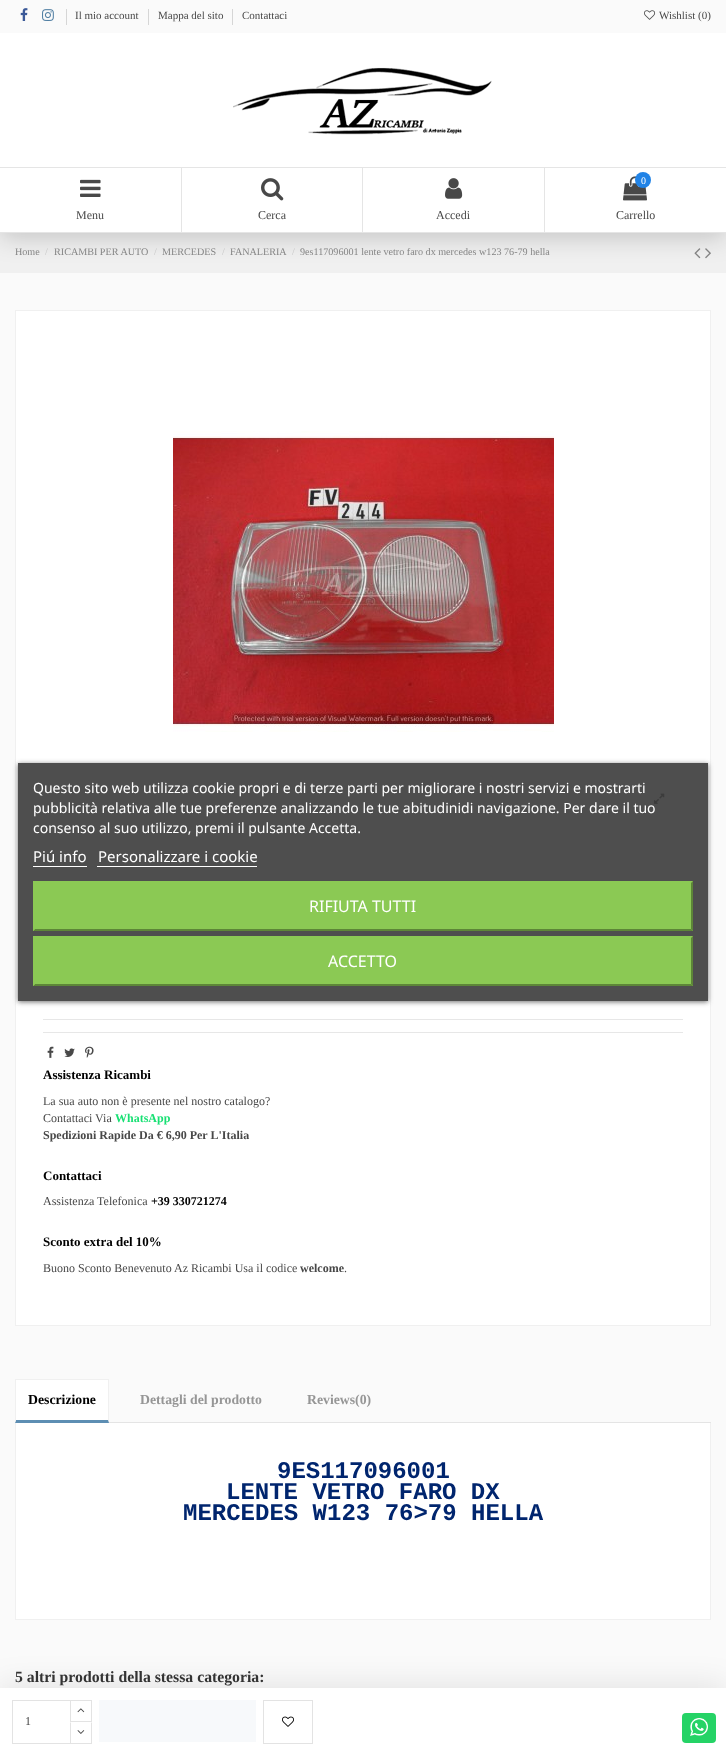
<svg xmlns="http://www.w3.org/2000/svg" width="726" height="1763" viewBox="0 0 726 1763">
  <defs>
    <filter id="blur1" x="-50%" y="-200%" width="200%" height="500%"><feGaussianBlur stdDeviation="12.5"/></filter>
    <filter id="blur2" x="-50%" y="-200%" width="200%" height="500%"><feGaussianBlur stdDeviation="15"/></filter>
    <clipPath id="clip1"><path d="M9 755H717V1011H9ZM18 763H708V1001H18Z" clip-rule="evenodd"/></clipPath>
    <filter id="blur3" x="-50%" y="-200%" width="200%" height="500%"><feGaussianBlur stdDeviation="2.5"/></filter>
  </defs>
  <rect width="100%" height="100%" fill="#fafafa"/>
  <rect x="0" y="233" width="726" height="40" fill="#f0f0f0"/>
  <image x="694" y="248" width="7" height="11" href="img9.png"/>
  <image x="705" y="248" width="6" height="11" href="img10.png"/>
  <rect x="0" y="5" width="726" height="233" fill="#000000" fill-opacity="0.18" filter="url(#blur1)"/>
  <rect x="0" y="33" width="726" height="200" fill="#ffffff"/>
  <rect x="0" y="0" width="726" height="33" fill="#fafafa"/>
  <image x="20" y="8" width="8" height="13" href="img1.png"/>
  <image x="42" y="9" width="12" height="12" href="img2.png"/>
  <rect x="66" y="9" width="1" height="16" fill="#d6d6d6"/>
  <text x="75" y="19" font-family="Liberation Serif" font-size="11" fill="#484848">Il mio account</text>
  <rect x="148" y="9" width="1" height="16" fill="#d6d6d6"/>
  <text x="158" y="19" font-family="Liberation Serif" font-size="11" fill="#484848">Mappa del sito</text>
  <rect x="232" y="9" width="1" height="16" fill="#d6d6d6"/>
  <text x="242" y="19" font-family="Liberation Serif" font-size="11" fill="#484848">Contattaci</text>
  <image x="644" y="10" width="12" height="10" href="img3.png"/>
  <text x="659" y="19" font-family="Liberation Serif" font-size="11" fill="#484848">Wishlist (0)</text>
  <image x="233" y="67" width="259" height="68" href="img4.png"/>
  <path d="M0 167H182L181 168H0Z" fill="#e5e5e5"/>
  <path d="M182 167V233L181 232V168Z" fill="#151515" fill-opacity="0.11"/>
  <path d="M182 233H0V232H181Z" fill="#151515" fill-opacity="0.11"/>
  <image x="80" y="179" width="21" height="18" href="img5.png"/>
  <text x="76" y="219" font-family="Liberation Serif" font-size="12" fill="#484848">Menu</text>
  <path d="M182 167H363L362 168H182Z" fill="#e5e5e5"/>
  <path d="M363 167V233L362 232V168Z" fill="#151515" fill-opacity="0.11"/>
  <path d="M363 233H182V232H362Z" fill="#151515" fill-opacity="0.11"/>
  <image x="261" y="178" width="23" height="23" href="img6.png"/>
  <text x="258" y="219" font-family="Liberation Serif" font-size="12" fill="#484848">Cerca</text>
  <path d="M363 167H545L544 168H363Z" fill="#e5e5e5"/>
  <path d="M545 167V233L544 232V168Z" fill="#151515" fill-opacity="0.11"/>
  <path d="M545 233H363V232H544Z" fill="#151515" fill-opacity="0.11"/>
  <image x="445" y="178" width="18" height="21" href="img7.png"/>
  <text x="436" y="219" font-family="Liberation Serif" font-size="12" fill="#484848">Accedi</text>
  <rect x="545" y="167" width="181" height="1" fill="#e5e5e5"/>
  <rect x="545" y="232" width="181" height="1" fill="#e5e5e5"/>
  <image x="623" y="176" width="24" height="25" href="img8.png"/>
  <circle cx="643" cy="180" r="8" fill="#2183e6"/>
  <text x="641" y="184" font-family="Liberation Serif" font-size="10" fill="#ffffff">0</text>
  <text x="616" y="219" font-family="Liberation Serif" font-size="12" fill="#484848">Carrello</text>
  <text x="15" y="255" font-family="Liberation Serif" font-size="10.15" fill="#858585">Home</text>
  <text x="45" y="255" font-family="Liberation Serif" font-size="10.15" fill="#c5c5c5">/</text>
  <text x="54" y="255" font-family="Liberation Serif" font-size="10.15" fill="#858585">RICAMBI PER AUTO</text>
  <text x="154" y="255" font-family="Liberation Serif" font-size="10.15" fill="#c5c5c5">/</text>
  <text x="162" y="255" font-family="Liberation Serif" font-size="10.15" fill="#858585">MERCEDES</text>
  <text x="222" y="255" font-family="Liberation Serif" font-size="10.15" fill="#c5c5c5">/</text>
  <text x="230" y="255" font-family="Liberation Serif" font-size="10.15" fill="#858585">FANALERIA</text>
  <text x="292" y="255" font-family="Liberation Serif" font-size="10.15" fill="#c5c5c5">/</text>
  <text x="300" y="255" font-family="Liberation Serif" font-size="10.15" fill="#858585">9es117096001 lente vetro faro dx mercedes w123 76-79 hella</text>
  <rect x="15.5" y="310.5" width="695" height="1015" fill="#ffffff" stroke="#f0f0f0"/>
  <image x="173" y="431" width="381" height="301" href="img11.png"/>
  <image x="654" y="793" width="11" height="11" href="img12.png"/>
  <text x="43" y="1079" font-family="Liberation Serif" font-size="13" font-weight="bold" fill="#000000">Assistenza Ricambi</text>
  <text x="43" y="1105" font-family="Liberation Serif" font-size="12" fill="#484848">La sua auto non è presente nel nostro catalogo?</text>
  <text x="43" y="1122" font-family="Liberation Serif" font-size="12" fill="#484848">Contattaci Via</text>
  <text x="115" y="1122" font-family="Liberation Serif" font-size="12" font-weight="bold" fill="#17e073">WhatsApp</text>
  <text x="43" y="1139" font-family="Liberation Serif" font-size="12" font-weight="bold" fill="#484848">Spedizioni Rapide Da € 6,90 Per L'Italia</text>
  <text x="43" y="1180" font-family="Liberation Serif" font-size="13" font-weight="bold" fill="#000000">Contattaci</text>
  <text x="43" y="1205" font-family="Liberation Serif" font-size="12" fill="#484848">Assistenza Telefonica</text>
  <text x="151" y="1205" font-family="Liberation Serif" font-size="12" font-weight="bold" fill="#000000">+39 330721274</text>
  <text x="43" y="1246" font-family="Liberation Serif" font-size="13" font-weight="bold" fill="#000000">Sconto extra del 10%</text>
  <text x="43" y="1272" font-family="Liberation Serif" font-size="12" fill="#484848">Buono Sconto Benevenuto Az Ricambi Usa il codice</text>
  <text x="300" y="1272" font-family="Liberation Serif" font-size="12" font-weight="bold" fill="#484848">welcome</text>
  <text x="344" y="1272" font-family="Liberation Serif" font-size="12" fill="#484848">.</text>
  <rect x="43" y="1019" width="640" height="1" fill="#e7e7e7"/>
  <rect x="43" y="1032" width="640" height="1" fill="#e7e7e7"/>
  <image x="47" y="1046" width="7" height="12" href="img13.png"/>
  <image x="64" y="1048" width="11" height="9" href="img14.png"/>
  <image x="85" y="1046" width="9" height="12" href="img15.png"/>
  <rect x="0" y="1684" width="726" height="75" fill="#000000" fill-opacity="0.09" filter="url(#blur2)"/>
  <rect x="0" y="1688" width="726" height="75" fill="#ffffff"/>
  <rect x="12.5" y="1700.5" width="58" height="43" fill="none" stroke="#e3e3e3"/>
  <text x="25" y="1725" font-family="Liberation Serif" font-size="12" fill="#484848">1</text>
  <rect x="70.5" y="1700.5" width="21" height="21" fill="none" stroke="#e3e3e3"/>
  <image x="77" y="1708" width="8" height="5" href="img16.png"/>
  <rect x="70" y="1722" width="1" height="21" fill="#ffffff"/>
  <path d="M92 1722V1744L91 1743V1723Z" fill="#e3e3e3"/>
  <rect x="70" y="1743" width="22" height="1" fill="#e3e3e3"/>
  <path d="M70 1744V1722L71 1723V1743Z" fill="#e3e3e3"/>
  <image x="77" y="1730" width="8" height="4" href="img17.png"/>
  <rect x="99" y="1700" width="157" height="42" fill="#f7f9fb"/>
  <rect x="263.5" y="1700.5" width="49" height="43" fill="none" stroke="#e3e3e3"/>
  <image x="282" y="1716" width="12" height="11" href="img18.png"/>
  <rect x="15" y="1422" width="696" height="1" fill="#e4e4e4"/>
  <rect x="16" y="1380" width="92" height="40" fill="#ffffff"/>
  <rect x="15" y="1379" width="94" height="1" fill="#f0f0f0"/>
  <path d="M109 1379V1423L108 1420V1380Z" fill="#f0f0f0"/>
  <path d="M109 1423H15L16 1420H108Z" fill="#5d8eb3"/>
  <path d="M15 1423V1379L16 1380V1420Z" fill="#f0f0f0"/>
  <text x="28" y="1404" font-family="Liberation Serif" font-size="13.75" font-weight="bold" fill="#000000">Descrizione</text>
  <text x="140" y="1404" font-family="Liberation Serif" font-size="13.75" font-weight="bold" fill="#969696">Dettagli del prodotto</text>
  <text x="307" y="1404" font-family="Liberation Serif" font-size="13.75" font-weight="bold" fill="#969696">Reviews(0)</text>
  <rect x="16" y="1423" width="694" height="196" fill="#ffffff"/>
  <rect x="710" y="1423" width="1" height="197" fill="#f0f0f0"/>
  <rect x="15" y="1619" width="696" height="1" fill="#f0f0f0"/>
  <rect x="15" y="1423" width="1" height="197" fill="#f0f0f0"/>
  <text x="277" y="1478" font-family="Liberation Mono" font-size="24" font-weight="bold" fill="#00256e">9ES117096001</text>
  <text x="226" y="1499" font-family="Liberation Mono" font-size="24" font-weight="bold" fill="#00256e">LENTE VETRO FARO DX</text>
  <text x="183" y="1520" font-family="Liberation Mono" font-size="24" font-weight="bold" fill="#00256e">MERCEDES W123 76&gt;79 HELLA</text>
  <text x="15" y="1682" font-family="Liberation Serif" font-size="15.75" font-weight="bold" fill="#333333">5 altri prodotti della stessa categoria:</text>
  <g clip-path="url(#clip1)">
    <rect x="18" y="764" width="690" height="238" fill="#707070" filter="url(#blur3)"/>
  </g>
  <rect x="18" y="763" width="690" height="238" fill="#3b3b3b" fill-opacity="0.9"/>
  <text x="33" y="793" font-family="Noto Sans" font-size="14" fill="#ffffff">Questo sito web utilizza cookie propri e di terze parti per migliorare i nostri servizi e mostrarti</text>
  <text x="33" y="813" font-family="Noto Sans" font-size="14" fill="#ffffff">pubblicità relativa alle tue preferenze analizzando le tue abitudinidi navigazione. Per dare il tuo</text>
  <text x="33" y="833" font-family="Noto Sans" font-size="14" fill="#ffffff">consenso al suo utilizzo, premi il pulsante Accetta.</text>
  <text x="33" y="862" font-family="Noto Sans" font-size="15" fill="#ffffff">Piú info</text>
  <rect x="33" y="866" width="54" height="1" fill="#ffffff"/>
  <text x="98" y="862" font-family="Noto Sans" font-size="15" fill="#ffffff">Personalizzare i cookie</text>
  <rect x="97" y="866" width="160" height="1" fill="#ffffff"/>
  <rect x="33" y="881" width="660" height="50" fill="#8bc954"/>
  <path d="M693 881V931L691 929V883Z" fill="#5d8638"/>
  <path d="M693 931H33L35 929H691Z" fill="#5d8638"/>
  <path d="M33 931V881L35 883V929Z" fill="#8bc954"/>
  <text x="309" y="912" font-family="Noto Sans" font-size="16" fill="#ffffff">RIFIUTA TUTTI</text>
  <rect x="33" y="936" width="660" height="50" fill="#8bc954"/>
  <path d="M693 936V986L691 984V938Z" fill="#5d8638"/>
  <path d="M693 986H33L35 984H691Z" fill="#5d8638"/>
  <path d="M33 986V936L35 938V984Z" fill="#8bc954"/>
  <text x="328" y="967" font-family="Noto Sans" font-size="16" fill="#ffffff">ACCETTO</text>
  <rect x="682" y="1713" width="34" height="30" rx="4" fill="#25d366"/>
  <image x="690" y="1718" width="18" height="18" href="img19.png"/>
</svg>
